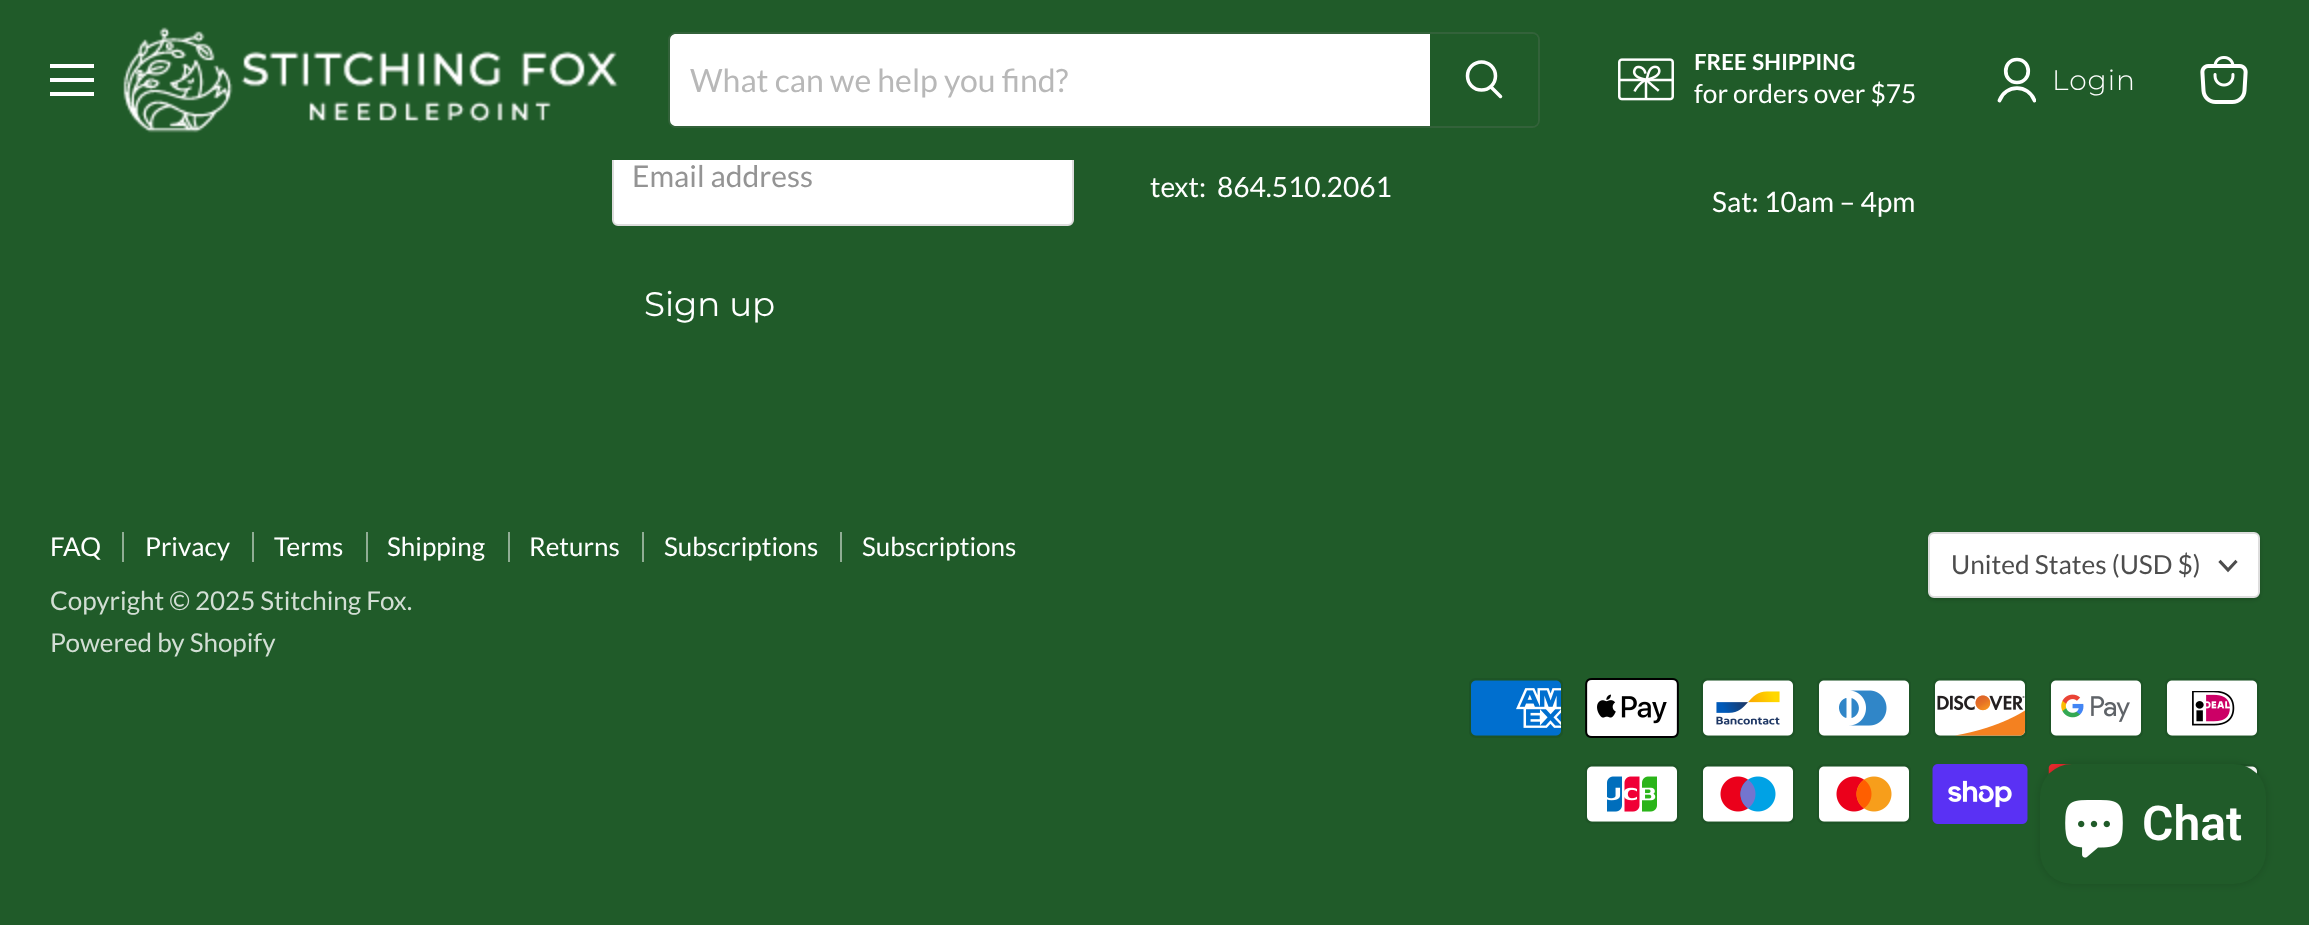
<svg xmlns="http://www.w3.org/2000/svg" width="2309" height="925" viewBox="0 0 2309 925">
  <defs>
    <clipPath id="clip1"><rect x="1996" y="56" width="40" height="48"/></clipPath>
    <filter id="blur1" x="-50%" y="-200%" width="200%" height="500%"><feGaussianBlur stdDeviation="2"/></filter>
    <filter id="blur2" x="-50%" y="-200%" width="200%" height="500%"><feGaussianBlur stdDeviation="5"/></filter>
  </defs>
  <rect width="100%" height="100%" fill="#205b29"/>
  <rect x="613" y="129" width="460" height="96" rx="5" fill="#ffffff" stroke="#dddddd" stroke-width="2"/>
  <rect x="612" y="128" width="462" height="32" fill="#205b29"/>
  <rect x="50" y="64" width="44" height="4" fill="#ffffff"/>
  <rect x="50" y="78" width="44" height="4" fill="#ffffff"/>
  <rect x="50" y="92" width="44" height="4" fill="#ffffff"/>
  <image x="123" y="27" width="496" height="106" href="img1.png"/>
  <rect x="669" y="33" width="870" height="94" rx="7" fill="none" stroke="#808080" stroke-opacity="0.2" stroke-width="2"/>
  <path d="M676 34H1430V126H676C672.5 126 670 123.5 670 120V40C670 36.5 672.5 34 676 34Z" fill="#ffffff"/>
  <text x="690" y="92" font-family="Lato" font-size="32" fill="#b8b8b8">What can we help you find?</text>
  <path d="M1431 35H1532C1535 35 1537 37 1537 40V120C1537 123 1535 125 1532 125H1431Z" fill="#205b29" stroke="#205b29" stroke-width="2"/>
  <path d="M1500.5 96.5L1491 87" fill="none" stroke="#ffffff" stroke-width="3.5" stroke-linecap="round"/>
  <circle cx="1481.5" cy="76" r="14" fill="none" stroke="#ffffff" stroke-width="3.5"/>
  <image x="1618" y="58" width="56" height="43" href="img2.png"/>
  <text x="1694" y="70" font-family="Lato" font-size="22.25" font-weight="bold" fill="#ffffff">FREE SHIPPING</text>
  <text x="1694" y="103" font-family="Lato" font-size="26.25" fill="#ffffff">for orders over $75</text>
  <path d="M2017 82.5C2032 82.5 2032 59.5 2017 59.5C2002 59.5 2002 82.5 2017 82.5Z" fill="none" stroke="#ffffff" stroke-width="3.7" stroke-linecap="round" stroke-linejoin="round"/>
  <g clip-path="url(#clip1)">
    <path d="M2034.5 100.5C2028.5 84 2005.5 84 1999.5 100.5" fill="none" stroke="#ffffff" stroke-width="3.7" stroke-linecap="round" stroke-linejoin="round"/>
  </g>
  <text x="2052" y="90" font-family="Montserrat" font-size="28.1" font-weight="300" letter-spacing="1" fill="#ffffff">Login</text>
  <image x="2200" y="56" width="48" height="48" href="img3.png"/>
  <text x="632" y="187" font-family="Lato" font-size="30" fill="#949494">Email address</text>
  <text x="644" y="316" font-family="Montserrat" font-size="34" fill="#ffffff">Sign up</text>
  <text x="1150" y="197" font-family="Lato" font-size="28.1" fill="#ffffff" xml:space="preserve">text:  864.510.2061</text>
  <text x="1712" y="212" font-family="Lato" font-size="28.1" fill="#ffffff">Sat: 10am – 4pm</text>
  <rect x="122" y="532" width="2" height="30" fill="#90ad94"/>
  <text x="50" y="556" font-family="Lato" font-size="26" fill="#ffffff">FAQ</text>
  <rect x="252" y="532" width="2" height="30" fill="#90ad94"/>
  <text x="145" y="556" font-family="Lato" font-size="26" fill="#ffffff">Privacy</text>
  <rect x="366" y="532" width="2" height="30" fill="#90ad94"/>
  <text x="274" y="556" font-family="Lato" font-size="26" fill="#ffffff">Terms</text>
  <rect x="508" y="532" width="2" height="30" fill="#90ad94"/>
  <text x="387" y="556" font-family="Lato" font-size="26" fill="#ffffff">Shipping</text>
  <rect x="642" y="532" width="2" height="30" fill="#90ad94"/>
  <text x="529" y="556" font-family="Lato" font-size="26" fill="#ffffff">Returns</text>
  <rect x="840" y="532" width="2" height="30" fill="#90ad94"/>
  <text x="664" y="556" font-family="Lato" font-size="26" fill="#ffffff">Subscriptions</text>
  <text x="862" y="556" font-family="Lato" font-size="26" fill="#ffffff">Subscriptions</text>
  <text x="50" y="610" font-family="Lato" font-size="26" fill="#d2ded4">Copyright © 2025 Stitching Fox.</text>
  <text x="50" y="652" font-family="Lato" font-size="26" fill="#d2ded4">Powered by Shopify</text>
  <rect x="1928" y="534" width="332" height="66" rx="6" fill="#000000" fill-opacity="0.15" filter="url(#blur1)"/>
  <rect x="1929" y="533" width="330" height="64" rx="5" fill="#ffffff" stroke="#dddddd" stroke-width="2"/>
  <text x="1951" y="574" font-family="Lato" font-size="26.25" fill="#4d4d4d">United States (USD $)</text>
  <path d="M2228 570L2235.5 562M2228 570L2220.5 562" fill="none" stroke="#4d4d4d" stroke-width="3.1" stroke-linecap="square"/>
  <image x="1469" y="678" width="94" height="60" href="img4.png"/>
  <image x="1585" y="678" width="94" height="60" href="img5.png"/>
  <image x="1701" y="678" width="94" height="60" href="img6.png"/>
  <image x="1817" y="678" width="94" height="60" href="img7.png"/>
  <image x="1933" y="678" width="94" height="60" href="img8.png"/>
  <image x="2049" y="678" width="94" height="60" href="img9.png"/>
  <image x="2165" y="678" width="94" height="60" href="img10.png"/>
  <image x="1585" y="764" width="94" height="60" href="img11.png"/>
  <image x="1701" y="764" width="94" height="60" href="img12.png"/>
  <image x="1817" y="764" width="94" height="60" href="img13.png"/>
  <image x="1932" y="764" width="96" height="60" href="img14.png"/>
  <image x="2048" y="764" width="24" height="11" href="img15.png"/>
  <image x="2234" y="764" width="25" height="12" href="img16.png"/>
  <rect x="2040" y="764" width="226" height="120" rx="32" fill="#000000" fill-opacity="0.15" filter="url(#blur2)"/>
  <rect x="2040" y="764" width="226" height="120" rx="32" fill="#205b29"/>
  <image x="2065" y="800" width="58" height="58" href="img17.png"/>
  <text x="2142" y="840" font-family="Roboto" font-size="48" font-weight="600" fill="#ffffff">Chat</text>
</svg>
